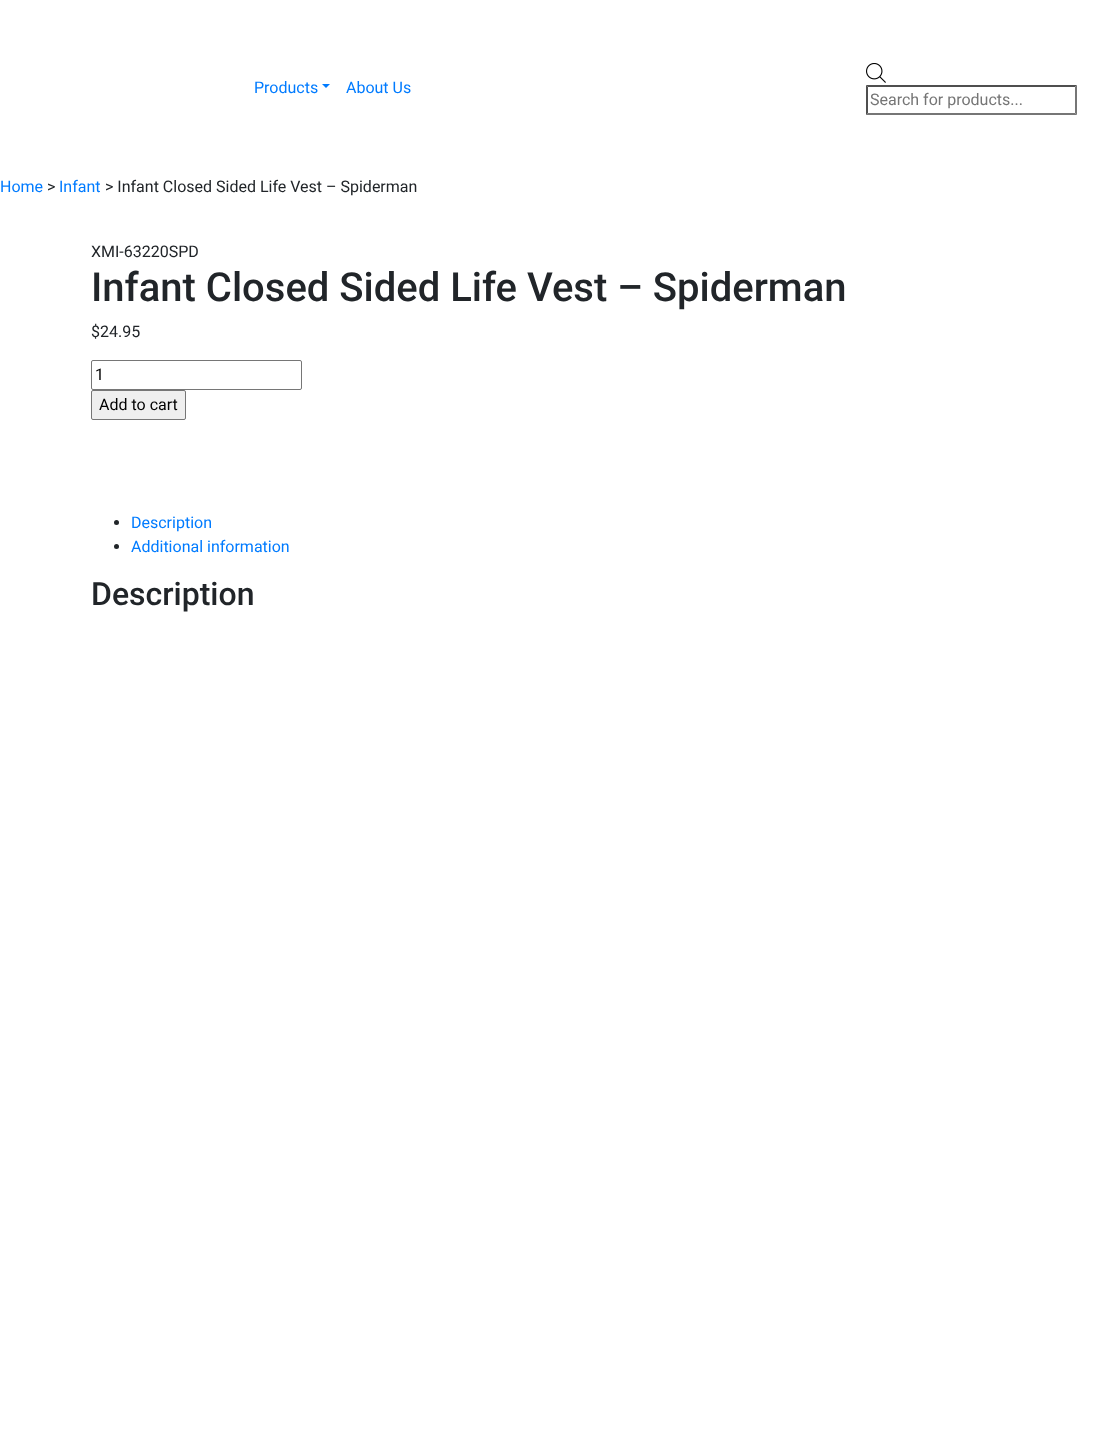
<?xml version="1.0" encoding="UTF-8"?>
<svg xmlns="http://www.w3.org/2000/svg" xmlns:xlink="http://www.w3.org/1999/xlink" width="1112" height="1436">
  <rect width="100%" height="100%" fill="#ffffff" />
  <path d="M 322 84 h 8 l -4 4 z" fill="#007bff" />
  <image x="866" y="63" width="20" height="20" xlink:href="image1.png" />
  <path d="M 866 85 h 211 l -2 2 h -207 z" fill="#4f4f4f" />
  <path d="M 1077 85 v 30 l -2 -2 v -26 z" fill="#767676" />
  <path d="M 1077 115 h -211 l 2 -2 h 207 z" fill="#767676" />
  <path d="M 866 115 v -30 l 2 2 v 26 z" fill="#4f4f4f" />
  <rect x="91.5" y="360.5" width="210" height="29" rx="1.5" fill="none" stroke="#767676" />
  <rect x="91.5" y="390.5" width="94" height="29" rx="1.5" fill="#efefef" stroke="#767676" />
  <circle cx="116.5" cy="522.5" r="2.5" fill="#212529" />
  <circle cx="116.5" cy="546.5" r="2.5" fill="#212529" />
  <text x="254" y="93" style="font-family: Roboto; font-size: 16px; fill: #007bff">Products</text>
  <text x="346" y="93" style="font-family: Roboto; font-size: 16px; fill: #007bff">About Us</text>
  <text x="870" y="105" style="font-family: Roboto; font-size: 16px; fill: #757575">Search for products...</text>
  <text x="0" y="192" style="font-family: Roboto; font-size: 16px; fill: #007bff">Home</text>
  <text x="47" y="192" style="font-family: Roboto; font-size: 16px; fill: #212529">&gt;</text>
  <text x="59" y="192" style="font-family: Roboto; font-size: 16px; fill: #007bff">Infant</text>
  <text x="105" y="192" style="font-family: Roboto; font-size: 16px; fill: #212529">&gt; Infant Closed Sided Life Vest – Spiderman</text>
  <text x="91" y="257" style="font-family: Roboto; font-size: 16px; fill: #212529">XMI-63220SPD</text>
  <text x="91" y="301" style="font-family: Roboto; font-size: 40px; font-weight: 500; fill: #212529">Infant Closed Sided Life Vest – Spiderman</text>
  <text x="91" y="337" style="font-family: Roboto; font-size: 16px; fill: #212529">$24.95</text>
  <text x="95" y="380" style="font-family: Roboto; font-size: 16px; fill: #000000">1</text>
  <text x="99" y="410" style="font-family: Roboto; font-size: 16px; fill: #000000">Add to cart</text>
  <text x="131" y="528" style="font-family: Roboto; font-size: 16px; fill: #007bff">Description</text>
  <text x="131" y="552" style="font-family: Roboto; font-size: 16px; fill: #007bff">Additional information</text>
  <text x="91" y="605" style="font-family: Roboto; font-size: 32px; font-weight: 500; fill: #212529">Description</text>
</svg>
